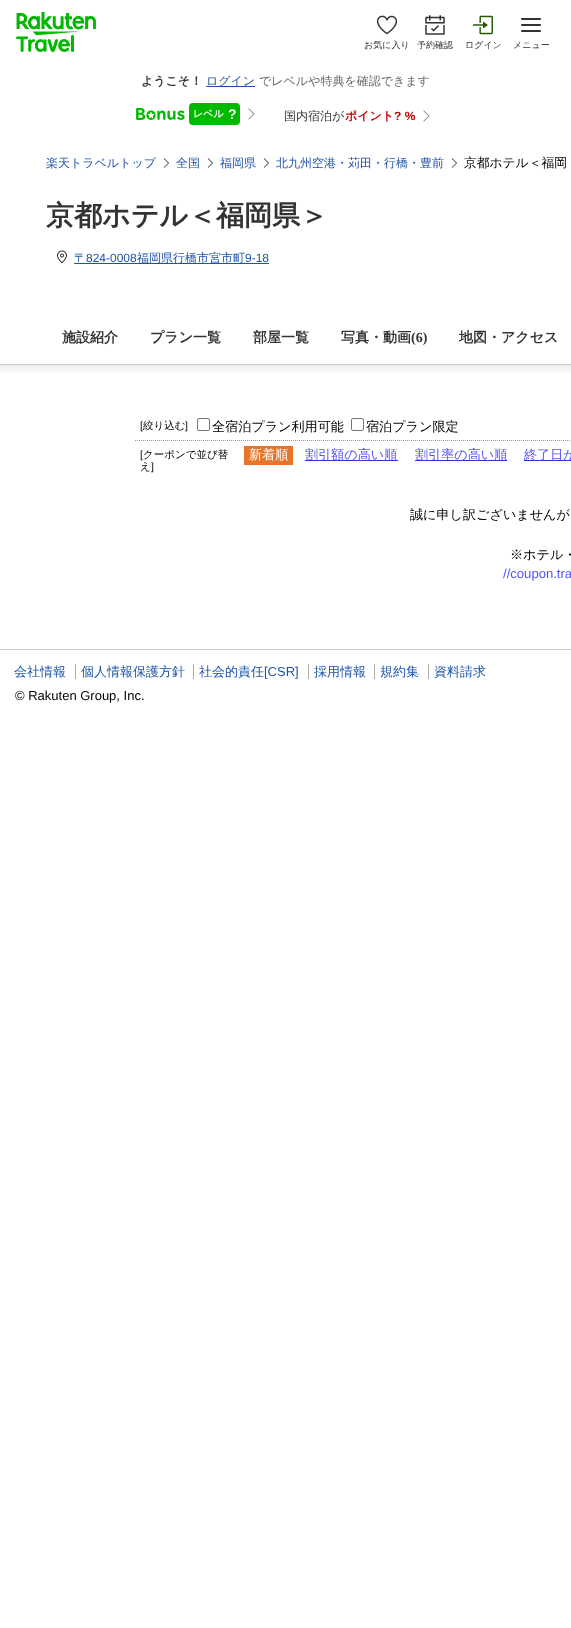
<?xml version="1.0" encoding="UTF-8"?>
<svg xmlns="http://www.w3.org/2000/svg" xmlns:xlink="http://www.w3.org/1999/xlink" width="571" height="1628">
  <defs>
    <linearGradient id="g1" gradientUnits="userSpaceOnUse" x1="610" y1="375" x2="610" y2="365"><stop offset="0" stop-color="#ffffff" /><stop offset="1" stop-color="#ededed" /></linearGradient>
  </defs>
  <rect width="100%" height="100%" fill="#ffffff" />
  <image x="16" y="12" width="80" height="40" xlink:href="image1.png" />
  <image x="376" y="15" width="22" height="20" xlink:href="image2.png" />
  <image x="425" y="15" width="20" height="20" xlink:href="image3.png" />
  <image x="473" y="15" width="20" height="20" xlink:href="image4.png" />
  <image x="521" y="18" width="20" height="14" xlink:href="image5.png" />
  <rect x="206" y="86" width="49" height="1" fill="#1d54a7" />
  <image x="136" y="108" width="49" height="12" xlink:href="image6.png" />
  <rect x="189" y="103" width="51" height="22" rx="4" fill="#00b900" />
  <image x="248" y="108" width="7" height="12" xlink:href="image7.png" />
  <image x="423" y="110" width="7" height="12" xlink:href="image7.png" />
  <image x="163" y="158" width="6" height="10" xlink:href="image8.png" />
  <image x="207" y="158" width="6" height="10" xlink:href="image8.png" />
  <image x="263" y="158" width="6" height="10" xlink:href="image8.png" />
  <image x="451" y="158" width="6" height="10" xlink:href="image8.png" />
  <image x="57" y="250" width="10" height="14" xlink:href="image9.png" />
  <rect x="74" y="263" width="195" height="1" fill="#1d54a7" />
  <rect y="365" width="571" height="9" fill="url(#g1)" />
  <rect y="364" width="571" height="1" fill="#cccccc" />
  <path d="M 135 440.5 h 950" fill="none" stroke="#999999" stroke-dasharray="1 1" />
  <rect x="197.5" y="418.5" width="12" height="12" rx="1.5" fill="none" stroke="#767676" />
  <rect x="351.5" y="418.5" width="12" height="12" rx="1.5" fill="none" stroke="#767676" />
  <rect x="244" y="446" width="49" height="19" fill="#e6752b" />
  <rect x="305" y="460" width="93" height="1" fill="#3333cc" />
  <rect x="415" y="460" width="92" height="1" fill="#3333cc" />
  <rect x="524" y="460" width="47" height="1" fill="#3333cc" />
  <rect y="649" width="571" height="1" fill="#cccccc" />
  <rect x="75" y="664" width="1" height="15" fill="#adadad" />
  <rect x="193" y="664" width="1" height="15" fill="#adadad" />
  <rect x="308" y="664" width="1" height="15" fill="#adadad" />
  <rect x="374" y="664" width="1" height="15" fill="#adadad" />
  <rect x="428" y="664" width="1" height="15" fill="#adadad" />
  <text x="364" y="48" style="font-family: WenQuanYi Zen Hei; font-size: 9px; font-weight: 500; fill: #333333">お気に入り</text>
  <text x="417" y="48" style="font-family: WenQuanYi Zen Hei; font-size: 9px; font-weight: 500; fill: #333333">予約確認</text>
  <text x="465" y="48" style="font-family: WenQuanYi Zen Hei; font-size: 9px; font-weight: 500; fill: #333333">ログイン</text>
  <text x="513" y="48" style="font-family: WenQuanYi Zen Hei; font-size: 9px; font-weight: 500; fill: #333333">メニュー</text>
  <text x="141" y="85" style="font-family: WenQuanYi Zen Hei; font-size: 12px; font-weight: bold; fill: #333333">ようこそ！</text>
  <text x="206" y="85" style="font-family: WenQuanYi Zen Hei; font-size: 12px; font-weight: 500; fill: #1d54a7">ログイン</text>
  <text x="259" y="85" style="font-family: WenQuanYi Zen Hei; font-size: 12px; font-weight: 500; fill: #686868">でレベルや特典を確認できます</text>
  <text x="193" y="117" style="font-family: WenQuanYi Zen Hei; font-size: 10px; font-weight: bold; fill: #ffffff">レベル</text>
  <text x="228" y="119" style="font-family: Liberation Sans; font-size: 14px; font-weight: bold; fill: #ffffff">?</text>
  <text x="284" y="120" style="font-family: WenQuanYi Zen Hei; font-size: 12px; font-weight: 500; fill: #333333">国内宿泊が</text>
  <text x="345" y="120" style="font-family: WenQuanYi Zen Hei; font-size: 12px; font-weight: bold; fill: #bf0000">ポイント</text>
  <text x="394" y="120" style="font-family: Liberation Sans; font-size: 12px; font-weight: bold; fill: #bf0000">? %</text>
  <text x="46" y="167" style="font-family: WenQuanYi Zen Hei; font-size: 12px; font-weight: 500; fill: #1d54a7">楽天トラベルトップ</text>
  <text x="176" y="167" style="font-family: WenQuanYi Zen Hei; font-size: 12px; font-weight: 500; fill: #1d54a7">全国</text>
  <text x="220" y="167" style="font-family: WenQuanYi Zen Hei; font-size: 12px; font-weight: 500; fill: #1d54a7">福岡県</text>
  <text x="276" y="167" style="font-family: WenQuanYi Zen Hei; font-size: 12px; font-weight: 500; fill: #1d54a7">北九州空港・苅田・行橋・豊前</text>
  <text x="464" y="167" style="font-family: WenQuanYi Zen Hei; font-size: 12.75px; font-weight: 500; fill: #000000">京都ホテル＜福岡</text>
  <text x="46" y="225" style="font-family: WenQuanYi Zen Hei; font-size: 28px; font-weight: bold; fill: #333333">京都ホテル＜福岡県＞</text>
  <text x="74" y="262" style="font-family: WenQuanYi Zen Hei; font-size: 12px; font-weight: 500; fill: #1d54a7">〒</text>
  <text x="86" y="262" style="font-family: Liberation Sans; font-size: 12px; fill: #1d54a7">824-0008</text>
  <text x="137" y="262" style="font-family: WenQuanYi Zen Hei; font-size: 12px; font-weight: 500; fill: #1d54a7">福岡県行橋市宮市町</text>
  <text x="245" y="262" style="font-family: Liberation Sans; font-size: 12px; fill: #1d54a7">9-18</text>
  <text x="62" y="342" style="font-family: WenQuanYi Zen Hei; font-size: 14px; font-weight: bold; fill: #333333">施設紹介</text>
  <text x="150" y="342" style="font-family: WenQuanYi Zen Hei; font-size: 14px; font-weight: bold; fill: #333333">プラン一覧</text>
  <text x="253" y="342" style="font-family: WenQuanYi Zen Hei; font-size: 14px; font-weight: bold; fill: #333333">部屋一覧</text>
  <text x="341" y="342" style="font-family: WenQuanYi Zen Hei; font-size: 14px; font-weight: bold; fill: #333333">写真・動画</text>
  <text x="411" y="342" style="font-family: Liberation Serif; font-size: 14px; font-weight: bold; fill: #333333">(6)</text>
  <text x="459" y="342" style="font-family: WenQuanYi Zen Hei; font-size: 14px; font-weight: bold; fill: #333333">地図・アクセス</text>
  <text x="140" y="429" style="font-family: Liberation Sans; font-size: 10.5px; fill: #000000">[</text>
  <text x="143" y="429" style="font-family: WenQuanYi Zen Hei; font-size: 10.5px; font-weight: 500; fill: #000000">絞り込む</text>
  <text x="185" y="429" style="font-family: Liberation Sans; font-size: 10.5px; fill: #000000">]</text>
  <text x="212" y="431" style="font-family: WenQuanYi Zen Hei; font-size: 13.1px; font-weight: 500; fill: #000000">全宿泊プラン利用可能</text>
  <text x="366" y="431" style="font-family: WenQuanYi Zen Hei; font-size: 13.1px; font-weight: 500; fill: #000000">宿泊プラン限定</text>
  <text x="140" y="458" style="font-family: Liberation Sans; font-size: 10.5px; fill: #000000">[</text>
  <text x="143" y="458" style="font-family: WenQuanYi Zen Hei; font-size: 10.5px; font-weight: 500; fill: #000000">クーポンで並び替</text>
  <text x="140" y="470" style="font-family: WenQuanYi Zen Hei; font-size: 10.5px; font-weight: 500; fill: #000000">え</text>
  <text x="151" y="470" style="font-family: Liberation Sans; font-size: 10.5px; fill: #000000">]</text>
  <text x="249" y="459" style="font-family: WenQuanYi Zen Hei; font-size: 13.1px; font-weight: 500; fill: #ffffff">新着順</text>
  <text x="305" y="459" style="font-family: WenQuanYi Zen Hei; font-size: 13.1px; font-weight: 500; fill: #5454f6">割引額の高い順</text>
  <text x="415" y="459" style="font-family: WenQuanYi Zen Hei; font-size: 13.1px; font-weight: 500; fill: #5454f6">割引率の高い順</text>
  <text x="524" y="459" style="font-family: WenQuanYi Zen Hei; font-size: 13.1px; font-weight: 500; fill: #5454f6">終了日が</text>
  <text x="410" y="519" style="font-family: WenQuanYi Zen Hei; font-size: 13.1px; font-weight: 500; fill: #000000">誠に申し訳ございませんが</text>
  <text x="510" y="559" style="font-family: WenQuanYi Zen Hei; font-size: 13.1px; font-weight: 500; fill: #000000">※ホテル・</text>
  <text x="503" y="578" style="font-family: Liberation Sans; font-size: 13.1px; fill: #5454f6">//coupon.tra</text>
  <text x="14" y="676" style="font-family: WenQuanYi Zen Hei; font-size: 13px; font-weight: 500; fill: #1d54a7">会社情報</text>
  <text x="81" y="676" style="font-family: WenQuanYi Zen Hei; font-size: 13px; font-weight: 500; fill: #1d54a7">個人情報保護方針</text>
  <text x="199" y="676" style="font-family: WenQuanYi Zen Hei; font-size: 13px; font-weight: 500; fill: #1d54a7">社会的責任</text>
  <text x="264" y="676" style="font-family: Liberation Sans; font-size: 13px; fill: #1d54a7">[CSR]</text>
  <text x="314" y="676" style="font-family: WenQuanYi Zen Hei; font-size: 13px; font-weight: 500; fill: #1d54a7">採用情報</text>
  <text x="380" y="676" style="font-family: WenQuanYi Zen Hei; font-size: 13px; font-weight: 500; fill: #1d54a7">規約集</text>
  <text x="434" y="676" style="font-family: WenQuanYi Zen Hei; font-size: 13px; font-weight: 500; fill: #1d54a7">資料請求</text>
  <text x="15" y="700" style="font-family: Liberation Sans; font-size: 13px; fill: #000000">© Rakuten Group, Inc.</text>
</svg>
